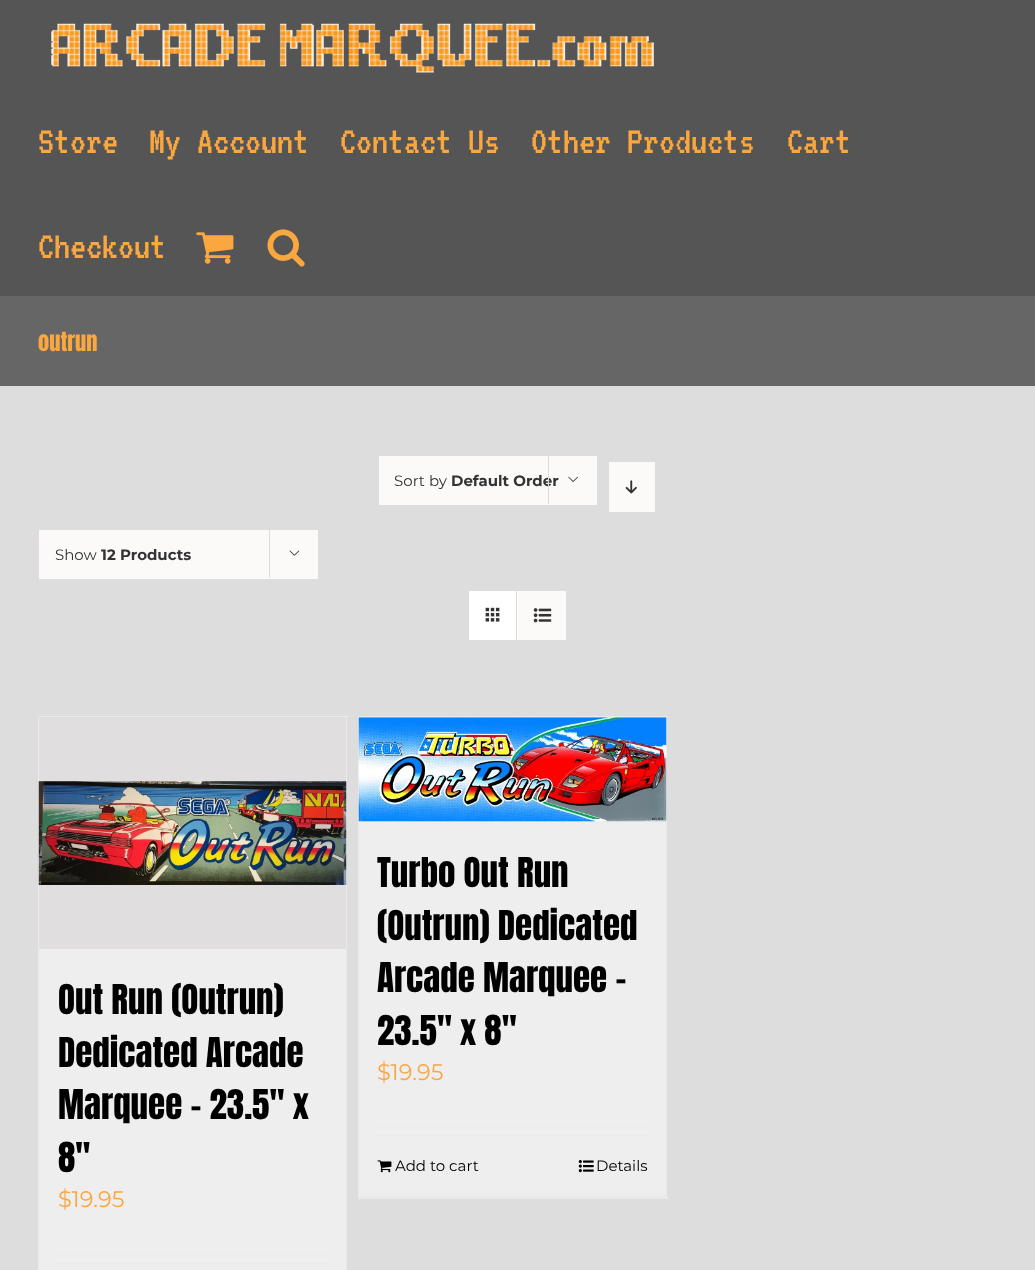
<?xml version="1.0" encoding="UTF-8"?>
<svg xmlns="http://www.w3.org/2000/svg" xmlns:xlink="http://www.w3.org/1999/xlink" width="1035" height="1270">
  <rect width="100%" height="100%" fill="#dddddd" />
  <rect width="1035" height="296" fill="#555555" />
  <image x="51" y="23" width="603" height="50" xlink:href="image1.png" />
  <image x="196" y="232" width="38" height="32" xlink:href="image2.png" />
  <image x="267" y="229" width="38" height="38" xlink:href="image3.png" />
  <rect y="296" width="1035" height="90" fill="#666666" />
  <rect x="379" y="456" width="218" height="49" fill="#fbfaf9" />
  <image x="568" y="476" width="10" height="6" xlink:href="image4.png" />
  <rect x="609" y="462" width="46" height="50" fill="#fbfaf9" />
  <image x="625" y="480" width="12" height="14" xlink:href="image5.png" />
  <rect x="39" y="530" width="279" height="49" fill="#fbfaf9" />
  <rect x="269" y="529" width="1" height="49" fill="#dbdbdb" />
  <image x="289" y="550" width="11" height="6" xlink:href="image6.png" />
  <rect x="469" y="591" width="49" height="49" fill="#ffffff" />
  <rect x="516" y="591" width="1" height="49" fill="#dbdbdb" />
  <image x="485" y="607" width="15" height="15" xlink:href="image7.png" />
  <rect x="518" y="591" width="48" height="49" fill="#fbfaf9" />
  <image x="533" y="608" width="19" height="15" xlink:href="image8.png" />
  <rect x="39" y="949" width="307" height="321" fill="#eeeeee" />
  <rect x="38" y="716" width="310" height="1" fill="#ebeaea" />
  <rect x="346" y="716" width="1" height="554" fill="#ebeaea" />
  <rect x="38" y="716" width="1" height="554" fill="#ebeaea" />
  <rect x="39" y="718" width="307" height="231" fill="#e0dede" />
  <image x="38" y="781" width="309" height="104" xlink:href="image9.png" />
  <rect x="58" y="1254" width="270" height="1" fill="#ebeaea" />
  <rect x="58" y="1263" width="270" height="1" fill="#ebeaea" />
  <rect x="359" y="821" width="307" height="375" fill="#eeeeee" />
  <rect x="358" y="716" width="310" height="1" fill="#ebeaea" />
  <rect x="666" y="716" width="1" height="483" fill="#ebeaea" />
  <rect x="358" y="1196" width="310" height="3" fill="#ebeaea" />
  <rect x="358" y="716" width="1" height="483" fill="#ebeaea" />
  <image x="358" y="717" width="309" height="105" xlink:href="image10.png" />
  <rect x="378" y="1126" width="270" height="1" fill="#ebeaea" />
  <rect x="378" y="1135" width="270" height="1" fill="#ebeaea" />
  <image x="377" y="1160" width="15" height="13" xlink:href="image11.png" />
  <image x="578" y="1160" width="16" height="13" xlink:href="image12.png" />
  <text x="38" y="153" style="font-family: 'VT323'; font-size: 40px; fill: #faa740">Store</text>
  <text x="149" y="153" style="font-family: 'VT323'; font-size: 40px; fill: #faa740">My Account</text>
  <text x="340" y="153" style="font-family: 'VT323'; font-size: 40px; fill: #faa740">Contact Us</text>
  <text x="531" y="153" style="font-family: 'VT323'; font-size: 40px; fill: #faa740">Other Products</text>
  <text x="787" y="153" style="font-family: 'VT323'; font-size: 40px; fill: #faa740">Cart</text>
  <text x="38" y="258" style="font-family: 'VT323'; font-size: 40px; fill: #faa740">Checkout</text>
  <text x="38" y="351" style="font-family: Anton; font-size: 22.5px; fill: #faa740">outrun</text>
  <text x="394" y="486" style="font-family: Montserrat; font-size: 15px; font-weight: 100; fill: #333333">Sort by</text>
  <text x="451" y="486" style="font-family: 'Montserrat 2'; font-size: 15px; font-weight: 100; fill: #333333">Default Order</text>
  <rect x="548" y="455" width="1" height="49" fill="#dbdbdb" />
  <text x="55" y="560" style="font-family: Montserrat; font-size: 15px; font-weight: 100; fill: #333333">Show</text>
  <text x="101" y="560" style="font-family: 'Montserrat 2'; font-size: 15px; font-weight: 100; fill: #333333">12 Products</text>
  <text x="58" y="1014" style="font-family: Anton; font-size: 35px; fill: #000000">Out Run (Outrun)</text>
  <text x="58" y="1067" style="font-family: Anton; font-size: 35px; fill: #000000">Dedicated Arcade</text>
  <text x="58" y="1119" style="font-family: Anton; font-size: 35px; fill: #000000">Marquee – 23.5″ x</text>
  <text x="58" y="1172" style="font-family: Anton; font-size: 35px; fill: #000000">8″</text>
  <text x="58" y="1207" style="font-family: Montserrat; font-size: 22.5px; font-weight: 100; fill: #faa740">$19.95</text>
  <text x="377" y="887" style="font-family: Anton; font-size: 35px; fill: #000000">Turbo Out Run</text>
  <text x="377" y="940" style="font-family: Anton; font-size: 35px; fill: #000000">(Outrun) Dedicated</text>
  <text x="377" y="992" style="font-family: Anton; font-size: 35px; fill: #000000">Arcade Marquee –</text>
  <text x="377" y="1045" style="font-family: Anton; font-size: 35px; fill: #000000">23.5″ x 8″</text>
  <text x="377" y="1080" style="font-family: Montserrat; font-size: 22.5px; font-weight: 100; fill: #faa740">$19.95</text>
  <text x="395" y="1171" style="font-family: Montserrat; font-size: 15px; font-weight: 100; fill: #000000">Add to cart</text>
  <text x="596" y="1171" style="font-family: Montserrat; font-size: 15px; font-weight: 100; fill: #000000">Details</text>
</svg>
